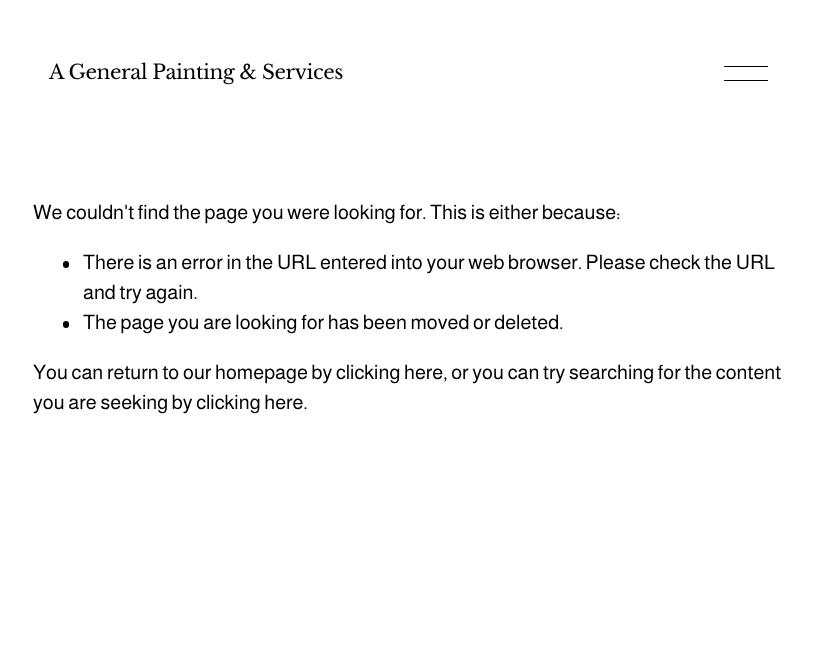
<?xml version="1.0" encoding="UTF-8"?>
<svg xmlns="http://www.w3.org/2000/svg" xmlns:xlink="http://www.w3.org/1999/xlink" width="825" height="649">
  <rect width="100%" height="100%" fill="#ffffff" />
  <rect x="724" y="66" width="44" height="1" fill="#000000" />
  <rect x="724" y="80" width="44" height="1" fill="#000000" />
  <rect x="63" y="261" width="6" height="7" rx="3" fill="#000000" />
  <rect x="63" y="321" width="6" height="7" rx="3" fill="#000000" />
  <text x="49" y="79" style="font-family: Libre Baskerville; font-size: 20px; letter-spacing: -0.4px; fill: #000000">A General Painting &amp; Services</text>
  <text x="33" y="219" style="font-family: Almarai; font-size: 20px; fill: #000000">We couldn't find the page you were looking for. This is either because:</text>
  <text x="83" y="269" style="font-family: Almarai; font-size: 20px; fill: #000000">There is an error in the URL entered into your web browser. Please check the URL</text>
  <text x="83" y="299" style="font-family: Almarai; font-size: 20px; fill: #000000">and try again.</text>
  <text x="83" y="329" style="font-family: Almarai; font-size: 20px; fill: #000000">The page you are looking for has been moved or deleted.</text>
  <text x="33" y="379" style="font-family: Almarai; font-size: 20px; fill: #000000">You can return to our homepage by clicking here, or you can try searching for the content</text>
  <text x="33" y="409" style="font-family: Almarai; font-size: 20px; fill: #000000">you are seeking by clicking here.</text>
</svg>
